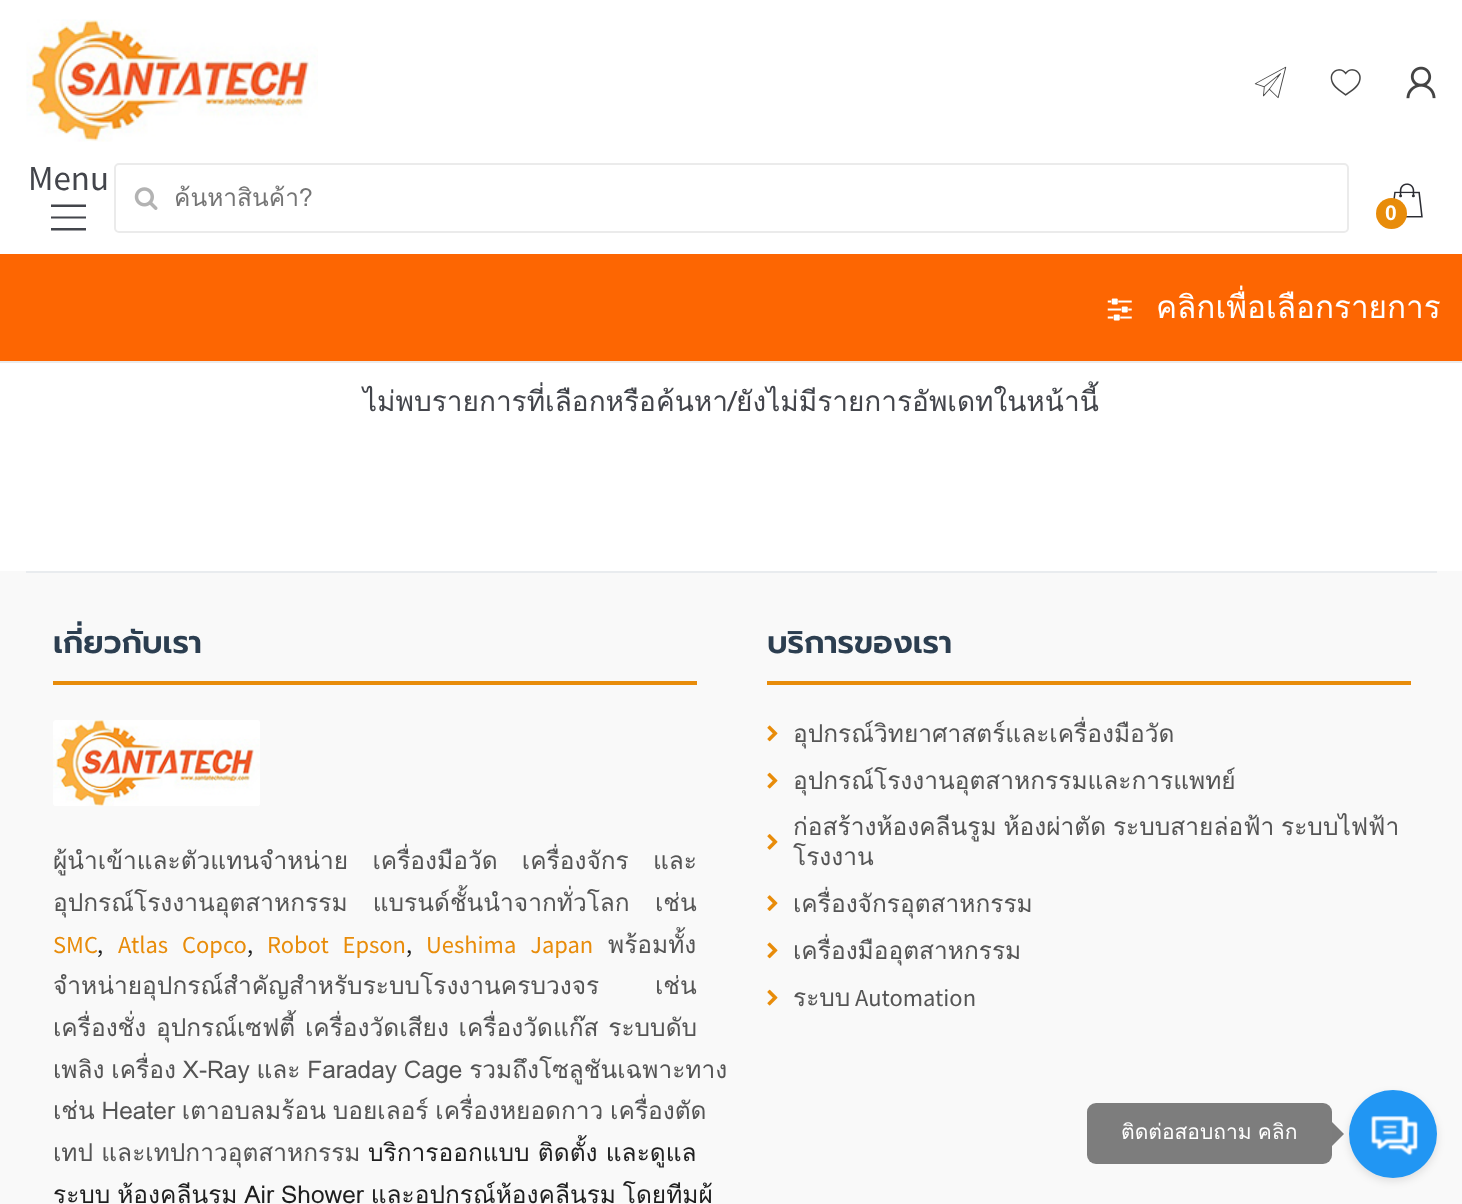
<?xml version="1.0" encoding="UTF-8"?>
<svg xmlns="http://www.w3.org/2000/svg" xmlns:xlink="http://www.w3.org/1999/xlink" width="1462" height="1204">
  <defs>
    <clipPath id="clip1"><rect x="175" y="179" width="1141" height="38" /></clipPath>
  </defs>
  <rect width="100%" height="100%" fill="#ffffff" />
  <image x="26" y="19" width="292" height="123" xlink:href="image1.png" />
  <image x="1254" y="66" width="33" height="33" xlink:href="image2.png" />
  <image x="1330" y="69" width="31" height="27" xlink:href="image3.png" />
  <image x="1406" y="66" width="30" height="33" xlink:href="image4.png" />
  <path d="M 51 204.5 v 2.5 h 35 v -2.5 z m 0 14 h 35 v -2 h -35 z m 0 12 h 35 v -2.5 h -35 z" fill="#43454b" />
  <rect x="115" y="164" width="1233" height="68" rx="4" fill="none" stroke="#ebebeb" stroke-width="2" />
  <image x="134" y="187" width="24" height="23" xlink:href="image5.png" />
  <image x="1393" y="183" width="30" height="35" xlink:href="image6.png" />
  <circle cx="1391.5" cy="213.5" r="15.5" fill="#e88c0a" />
  <rect y="254" width="1462" height="107" fill="#fd6602" />
  <rect y="361" width="1462" height="2" fill="#ebebeb" />
  <image x="1107" y="298" width="25" height="23" xlink:href="image7.png" />
  <rect y="571" width="1462" height="633" fill="#f9f9f9" />
  <rect x="26" y="571" width="1411" height="2" fill="#e9ecef" />
  <rect x="53" y="681" width="644" height="4" fill="#e88c0a" />
  <image x="53" y="720" width="207" height="86" xlink:href="image8.png" />
  <rect x="767" y="681" width="644" height="4" fill="#e88c0a" />
  <image x="767" y="725" width="11" height="17" xlink:href="image9.png" />
  <image x="767" y="772" width="11" height="17" xlink:href="image10.png" />
  <image x="767" y="834" width="11" height="16" xlink:href="image11.png" />
  <image x="767" y="895" width="11" height="16" xlink:href="image12.png" />
  <image x="767" y="942" width="11" height="17" xlink:href="image13.png" />
  <image x="767" y="989" width="11" height="17" xlink:href="image14.png" />
  <rect x="1087" y="1103" width="245" height="61" rx="9" fill="#7d7d7d" />
  <rect x="1349" y="1094" width="88" height="87" rx="43.5" fill="#000000" fill-opacity="0.11" filter="blur(4.5px)" />
  <path d="M 1332 1146 v -24 l 12 12 z" fill="#000000" fill-opacity="0.5" />
  <circle cx="1393" cy="1134" r="44" fill="#2196f3" />
  <image x="1371" y="1116" width="47" height="40" xlink:href="image15.png" />
  <text x="28" y="190" style="font-family: Source Sans Pro; font-size: 35px; fill: #43454b">Menu</text>
  <g clip-path="url(#clip1)">
    <text x="174" y="206" style="font-family: Loma; font-size: 24.5px; fill: #757575">ค้นหาสินค้า?</text>
  </g>
  <text x="1385" y="220" style="font-family: Liberation Sans; font-size: 21px; font-weight: bold; fill: #ffffff">0</text>
  <text x="1156" y="318" style="font-family: Loma; font-size: 31.5px; fill: #ffffff">คลิกเพื่อเลือกรายการ</text>
  <text x="363" y="411" style="font-family: Loma; font-size: 28px; fill: #43454b">ไม่พบรายการที่เลือกหรือค้นหา/ยังไม่มีรายการอัพเดทในหน้านี้</text>
  <text x="53" y="653" style="font-family: Prompt; font-size: 31.5px; font-weight: 600; fill: #2c3e50">เกี่ยวกับเรา</text>
  <text x="53" y="869" word-spacing="16" style="font-family: Loma; font-size: 24.5px; fill: #555555">ผู้นำเข้าและตัวแทนจำหน่าย เครื่องมือวัด เครื่องจักร และ</text>
  <text x="53" y="911" word-spacing="17" style="font-family: Loma; font-size: 24.5px; fill: #555555">อุปกรณ์โรงงานอุตสาหกรรม แบรนด์ชั้นนำจากทั่วโลก เช่น</text>
  <text x="53" y="953" style="font-family: Source Sans Pro; font-size: 24.5px; fill: #e88c0a">SMC</text>
  <text x="97" y="953" style="font-family: Source Sans Pro; font-size: 24.5px; fill: #1f1f1f">,</text>
  <text x="118" y="953" word-spacing="9" style="font-family: Source Sans Pro; font-size: 24.5px; fill: #e88c0a">Atlas Copco</text>
  <text x="247" y="953" style="font-family: Source Sans Pro; font-size: 24.5px; fill: #1f1f1f">,</text>
  <text x="267" y="953" word-spacing="9" style="font-family: Source Sans Pro; font-size: 24.5px; fill: #e88c0a">Robot Epson</text>
  <text x="406" y="953" style="font-family: Source Sans Pro; font-size: 24.5px; fill: #1f1f1f">,</text>
  <text x="426" y="953" word-spacing="9" style="font-family: Source Sans Pro; font-size: 24.5px; fill: #e88c0a">Ueshima Japan</text>
  <text x="608" y="953" style="font-family: Loma; font-size: 24.5px; fill: #555555">พร้อมทั้ง</text>
  <text x="53" y="994" style="font-family: Loma; font-size: 24.5px; fill: #555555">จำหน่ายอุปกรณ์สำคัญสำหรับระบบโรงงานครบวงจร</text>
  <text x="655" y="994" style="font-family: Loma; font-size: 24.5px; fill: #555555">เช่น</text>
  <text x="53" y="1036" word-spacing="1.5" style="font-family: Loma; font-size: 24.5px; fill: #555555">เครื่องชั่ง อุปกรณ์เซฟตี้ เครื่องวัดเสียง เครื่องวัดแก๊ส ระบบดับ</text>
  <text x="53" y="1078" word-spacing="-1.5" style="font-family: Loma; font-size: 24.5px; fill: #555555">เพลิง เครื่อง X-Ray และ Faraday Cage รวมถึงโซลูชันเฉพาะทาง</text>
  <text x="53" y="1119" word-spacing="-1.5" style="font-family: Loma; font-size: 24.5px; fill: #555555">เช่น Heater เตาอบลมร้อน บอยเลอร์ เครื่องหยอดกาว เครื่องตัด</text>
  <text x="53" y="1161" style="font-family: Loma; font-size: 24.5px; fill: #555555">เทป และเทปกาวอุตสาหกรรม</text>
  <text x="368" y="1161" style="font-family: Loma; font-size: 24.5px; fill: #1f1f1f">บริการออกแบบ ติดตั้ง และดูแล</text>
  <text x="53" y="1203" word-spacing="-1.5" style="font-family: Loma; font-size: 24.5px; fill: #1f1f1f">ระบบ ห้องคลีนรูม Air Shower และอุปกรณ์ห้องคลีนรูม โดยทีมผู้</text>
  <text x="767" y="653" style="font-family: Prompt; font-size: 31.5px; font-weight: 600; fill: #2c3e50">บริการของเรา</text>
  <text x="793" y="742" style="font-family: Loma; font-size: 24.5px; fill: #555555">อุปกรณ์วิทยาศาสตร์และเครื่องมือวัด</text>
  <text x="793" y="789" style="font-family: Loma; font-size: 24.5px; fill: #555555">อุปกรณ์โรงงานอุตสาหกรรมและการแพทย์</text>
  <text x="793" y="835" word-spacing="-1.5" style="font-family: Loma; font-size: 24.5px; fill: #555555">ก่อสร้างห้องคลีนรูม ห้องผ่าตัด ระบบสายล่อฟ้า ระบบไฟฟ้า</text>
  <text x="793" y="865" style="font-family: Loma; font-size: 24.5px; fill: #555555">โรงงาน</text>
  <text x="793" y="912" style="font-family: Loma; font-size: 24.5px; fill: #555555">เครื่องจักรอุตสาหกรรม</text>
  <text x="793" y="959" style="font-family: Loma; font-size: 24.5px; fill: #555555">เครื่องมืออุตสาหกรรม</text>
  <text x="793" y="1006" style="font-family: Loma; font-size: 24.5px; fill: #555555">ระบบ</text>
  <text x="855" y="1006" style="font-family: Source Sans Pro; font-size: 24.5px; fill: #555555">Automation</text>
  <text x="1121" y="1139" word-spacing="-1" style="font-family: Loma; font-size: 21px; fill: #ffffff">ติดต่อสอบถาม คลิก</text>
</svg>
